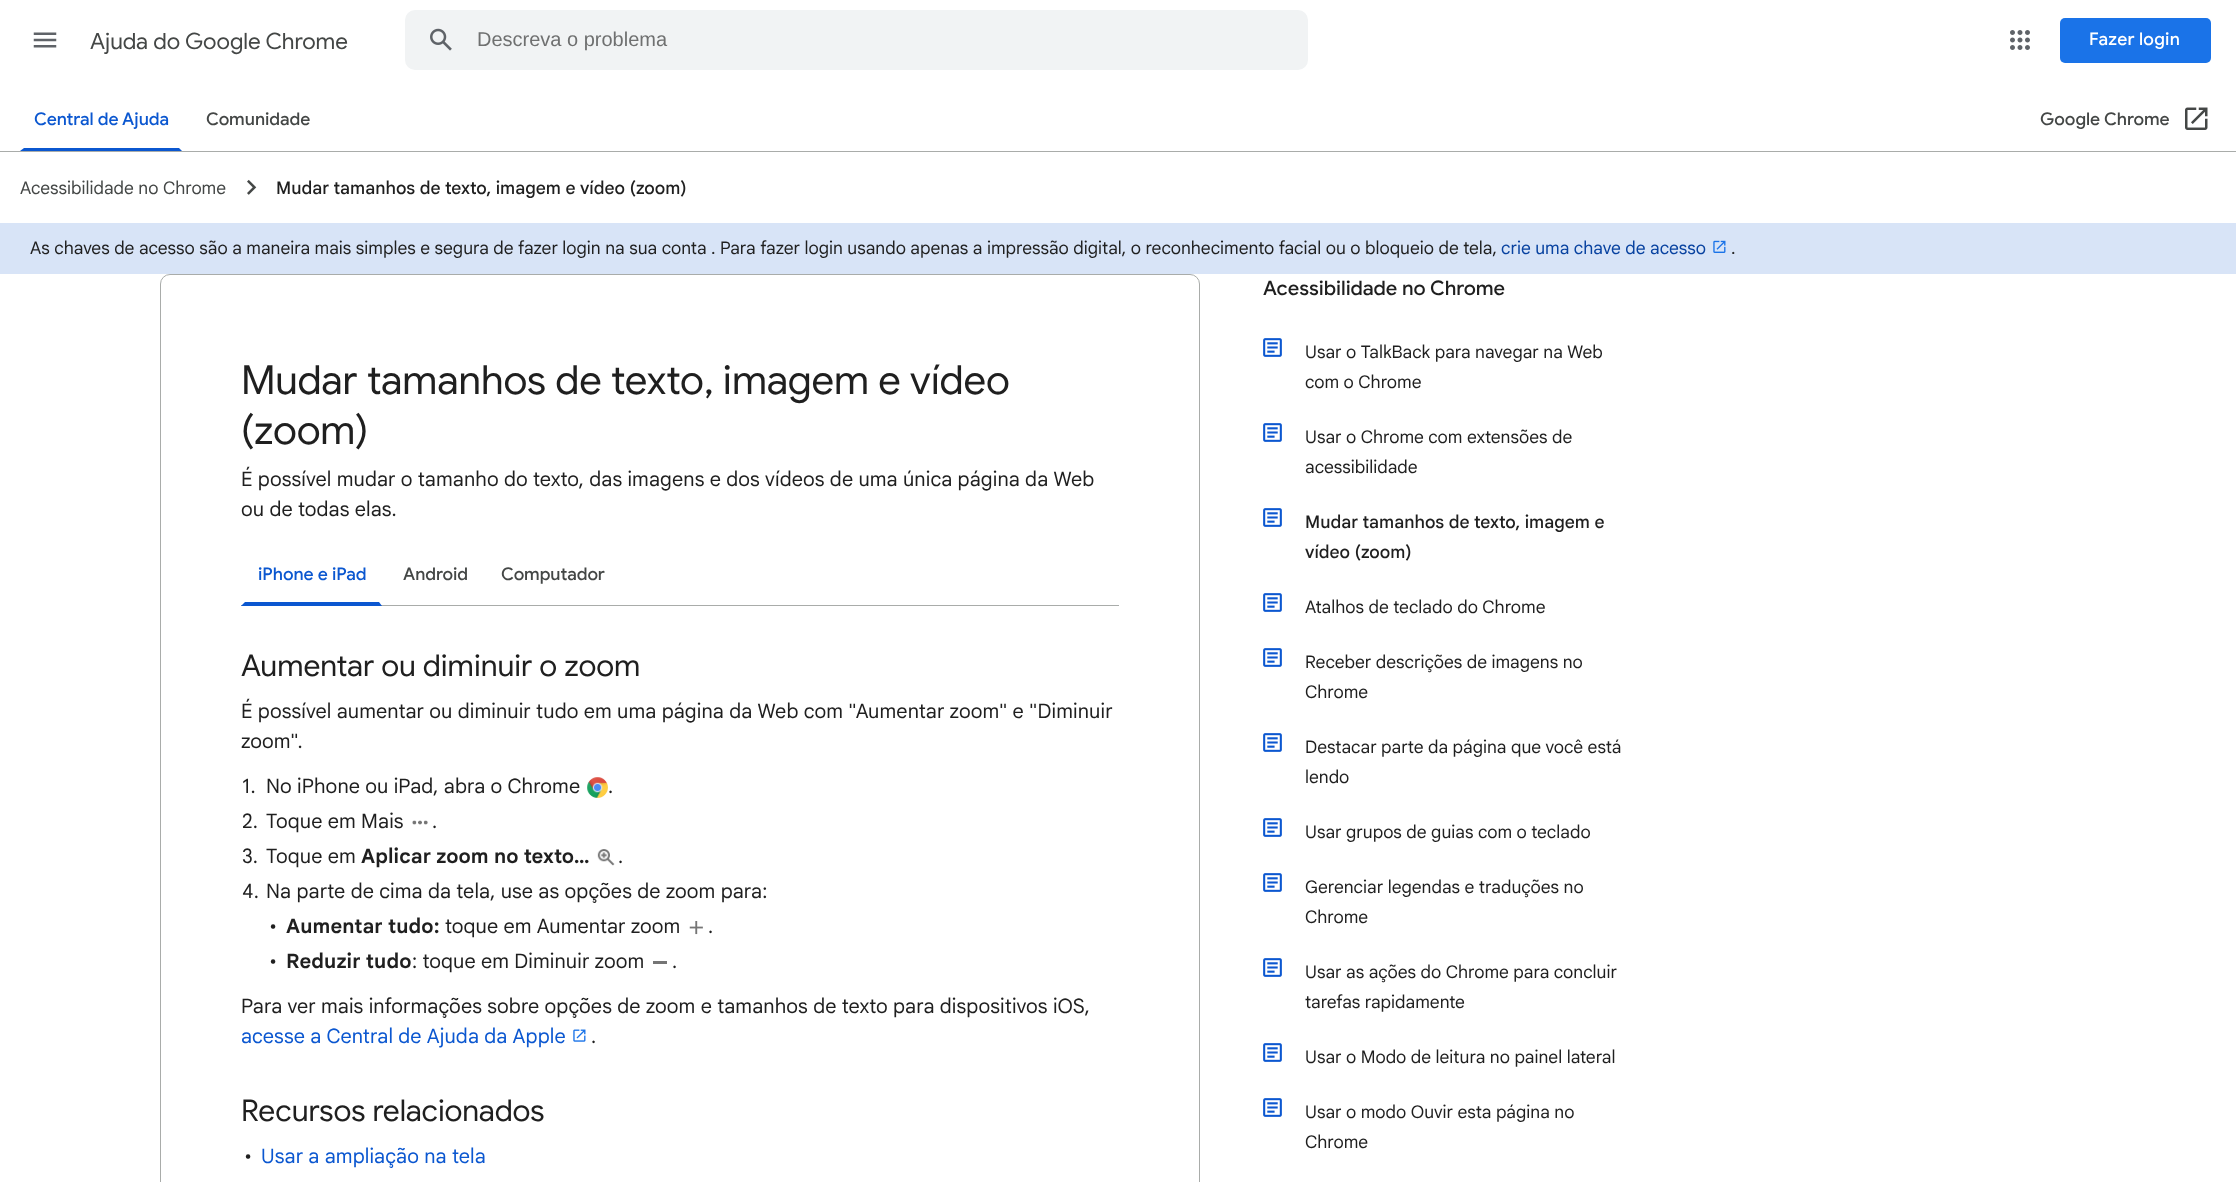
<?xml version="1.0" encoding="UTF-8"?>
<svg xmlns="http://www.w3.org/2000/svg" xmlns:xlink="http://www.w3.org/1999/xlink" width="2236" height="1182">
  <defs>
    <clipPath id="clip1"><rect x="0" y="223" width="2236" height="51" /></clipPath>
    <clipPath id="clip2"><path d="M 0 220 h 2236 v 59 h -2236 z m 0 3 h 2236 v 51 h -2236 z" clip-rule="evenodd" /></clipPath>
  </defs>
  <rect width="100%" height="100%" fill="#ffffff" />
  <rect y="223" width="2236" height="51" fill="#d8e4f7" />
  <image x="33" y="32" width="24" height="16" xlink:href="image1.png" />
  <rect x="405" y="10" width="903" height="60" rx="10" fill="#f1f3f4" />
  <image x="430" y="28" width="22" height="23" xlink:href="image2.png" />
  <image x="2010" y="30" width="20" height="20" xlink:href="image3.png" />
  <rect x="2060" y="18" width="151" height="45" rx="5" fill="#1a73e8" />
  <rect y="151" width="2236" height="1" fill="#a9acaa" />
  <path d="M 182 151 h -162 l 4 -3 h 155 z" fill="#0b57d0" />
  <image x="2185" y="107" width="23" height="23" xlink:href="image4.png" />
  <image x="247" y="179" width="10" height="16" xlink:href="image5.png" />
  <g clip-path="url(#clip1)">
    <g clip-path="url(#clip2)">
      <rect y="224" width="2236" height="51" fill="#2a364a" fill-opacity="0.3" filter="blur(1px)" />
    </g>
  </g>
  <image x="1713" y="240" width="13" height="13" xlink:href="image6.png" />
  <rect x="160.5" y="274.5" width="1039" height="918" rx="9.5" fill="none" stroke="#a9acaa" />
  <rect x="241" y="605" width="878" height="1" fill="#a9acaa" />
  <path d="M 382 606 h -141 l 4 -4 h 134 z" fill="#0b57d0" />
  <image x="587" y="777" width="21" height="21" xlink:href="image7.png" />
  <image x="412" y="820" width="16" height="5" xlink:href="image8.png" />
  <image x="597" y="849" width="18" height="17" xlink:href="image9.png" />
  <image x="689" y="921" width="14" height="14" xlink:href="image10.png" />
  <rect x="653" y="961" width="14" height="3" fill="#757575" />
  <image x="573" y="1029" width="13" height="13" xlink:href="image11.png" />
  <image x="1263" y="338" width="19" height="19" xlink:href="image12.png" />
  <image x="1263" y="423" width="19" height="19" xlink:href="image12.png" />
  <image x="1263" y="508" width="19" height="19" xlink:href="image12.png" />
  <image x="1263" y="593" width="19" height="19" xlink:href="image12.png" />
  <image x="1263" y="648" width="19" height="19" xlink:href="image12.png" />
  <image x="1263" y="733" width="19" height="19" xlink:href="image12.png" />
  <image x="1263" y="818" width="19" height="19" xlink:href="image12.png" />
  <image x="1263" y="873" width="19" height="19" xlink:href="image12.png" />
  <image x="1263" y="958" width="19" height="19" xlink:href="image12.png" />
  <image x="1263" y="1043" width="19" height="19" xlink:href="image12.png" />
  <image x="1263" y="1098" width="19" height="19" xlink:href="image12.png" />
  <text x="90" y="49" style="font-family: Google Sans; font-size: 22.5px; fill: #444746">Ajuda do Google Chrome</text>
  <text x="477" y="46" style="font-family: Liberation Sans; font-size: 20px; fill: #6f7070">Descreva o problema</text>
  <text x="2089" y="45" style="font-family: Google Sans; font-size: 17.5px; font-weight: 500; letter-spacing: 0.25px; fill: #ffffff">Fazer login</text>
  <text x="34" y="125" style="font-family: Google Sans; font-size: 17.5px; font-weight: 500; fill: #0b57d0">Central de Ajuda</text>
  <text x="206" y="125" style="font-family: Google Sans; font-size: 17.5px; font-weight: 500; fill: #444746">Comunidade</text>
  <text x="2040" y="125" style="font-family: Google Sans; font-size: 17.5px; font-weight: 500; fill: #444746">Google Chrome</text>
  <text x="20" y="194" style="font-family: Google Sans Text; font-size: 17.5px; fill: #444746">Acessibilidade no Chrome</text>
  <text x="276" y="194" style="font-family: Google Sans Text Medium; font-size: 17.5px; font-weight: 500; fill: #1f1f1f">Mudar tamanhos de texto, imagem e vídeo (zoom)</text>
  <text x="30" y="254" style="font-family: Google Sans Text; font-size: 17.5px; fill: #1f1f1f">As chaves de acesso são a maneira mais simples e segura de fazer login na sua conta . Para fazer login usando apenas a impressão digital, o reconhecimento facial ou o bloqueio de tela,</text>
  <text x="1501" y="254" style="font-family: Google Sans Text; font-size: 17.5px; fill: #0842a0">crie uma chave de acesso</text>
  <text x="1731" y="254" style="font-family: Google Sans Text; font-size: 17.5px; fill: #1f1f1f">.</text>
  <text x="241" y="394" style="font-family: Google Sans; font-size: 40px; fill: #1f1f1f">Mudar tamanhos de texto, imagem e vídeo</text>
  <text x="241" y="444" style="font-family: Google Sans; font-size: 40px; fill: #1f1f1f">(zoom)</text>
  <text x="241" y="486" style="font-family: Google Sans Text; font-size: 20px; letter-spacing: 0.1px; fill: #1f1f1f">É possível mudar o tamanho do texto, das imagens e dos vídeos de uma única página da Web</text>
  <text x="241" y="516" style="font-family: Google Sans Text; font-size: 20px; letter-spacing: 0.1px; fill: #1f1f1f">ou de todas elas.</text>
  <text x="258" y="580" style="font-family: Google Sans; font-size: 17.5px; font-weight: 500; fill: #0b57d0">iPhone e iPad</text>
  <text x="403" y="580" style="font-family: Google Sans; font-size: 17.5px; font-weight: 500; fill: #444746">Android</text>
  <text x="501" y="580" style="font-family: Google Sans; font-size: 17.5px; font-weight: 500; fill: #444746">Computador</text>
  <text x="241" y="676" style="font-family: Google Sans; font-size: 30px; fill: #1f1f1f">Aumentar ou diminuir o zoom</text>
  <text x="241" y="718" style="font-family: Google Sans Text; font-size: 20px; letter-spacing: 0.1px; fill: #1f1f1f">É possível aumentar ou diminuir tudo em uma página da Web com "Aumentar zoom" e "Diminuir</text>
  <text x="241" y="748" style="font-family: Google Sans Text; font-size: 20px; letter-spacing: 0.1px; fill: #1f1f1f">zoom".</text>
  <text x="242" y="793" style="font-family: Google Sans Text; font-size: 20px; letter-spacing: 0.1px; fill: #1f1f1f">1.</text>
  <text x="266" y="793" style="font-family: Google Sans Text; font-size: 20px; letter-spacing: 0.1px; fill: #1f1f1f">No iPhone ou iPad, abra o Chrome</text>
  <text x="608" y="793" style="font-family: Google Sans Text; font-size: 20px; letter-spacing: 0.1px; fill: #1f1f1f">.</text>
  <text x="242" y="828" style="font-family: Google Sans Text; font-size: 20px; letter-spacing: 0.1px; fill: #1f1f1f">2.</text>
  <text x="266" y="828" style="font-family: Google Sans Text; font-size: 20px; letter-spacing: 0.1px; fill: #1f1f1f">Toque em Mais</text>
  <text x="432" y="828" style="font-family: Google Sans Text; font-size: 20px; letter-spacing: 0.1px; fill: #1f1f1f">.</text>
  <text x="242" y="863" style="font-family: Google Sans Text; font-size: 20px; letter-spacing: 0.1px; fill: #1f1f1f">3.</text>
  <text x="266" y="863" style="font-family: Google Sans Text; font-size: 20px; letter-spacing: 0.1px; fill: #1f1f1f">Toque em</text>
  <text x="361" y="863" style="font-family: Google Sans Text; font-size: 20px; font-weight: bold; letter-spacing: 0.1px; fill: #1f1f1f">Aplicar zoom no texto…</text>
  <text x="618" y="863" style="font-family: Google Sans Text; font-size: 20px; letter-spacing: 0.1px; fill: #1f1f1f">.</text>
  <text x="242" y="898" style="font-family: Google Sans Text; font-size: 20px; letter-spacing: 0.1px; fill: #1f1f1f">4.</text>
  <text x="266" y="898" style="font-family: Google Sans Text; font-size: 20px; letter-spacing: 0.1px; fill: #1f1f1f">Na parte de cima da tela, use as opções de zoom para:</text>
  <text x="269" y="933" style="font-family: Google Sans Text; font-size: 20px; letter-spacing: 0.1px; fill: #1f1f1f">•</text>
  <text x="286" y="933" style="font-family: Google Sans Text; font-size: 20px; font-weight: bold; letter-spacing: 0.1px; fill: #1f1f1f">Aumentar tudo:</text>
  <text x="445" y="933" style="font-family: Google Sans Text; font-size: 20px; letter-spacing: 0.1px; fill: #1f1f1f">toque em Aumentar zoom</text>
  <text x="708" y="933" style="font-family: Google Sans Text; font-size: 20px; letter-spacing: 0.1px; fill: #1f1f1f">.</text>
  <text x="269" y="968" style="font-family: Google Sans Text; font-size: 20px; letter-spacing: 0.1px; fill: #1f1f1f">•</text>
  <text x="286" y="968" style="font-family: Google Sans Text; font-size: 20px; font-weight: bold; letter-spacing: 0.1px; fill: #1f1f1f">Reduzir tudo</text>
  <text x="412" y="968" style="font-family: Google Sans Text; font-size: 20px; letter-spacing: 0.1px; fill: #1f1f1f">: toque em Diminuir zoom</text>
  <text x="672" y="968" style="font-family: Google Sans Text; font-size: 20px; letter-spacing: 0.1px; fill: #1f1f1f">.</text>
  <text x="241" y="1013" style="font-family: Google Sans Text; font-size: 20px; letter-spacing: 0.1px; fill: #1f1f1f">Para ver mais informações sobre opções de zoom e tamanhos de texto para dispositivos iOS,</text>
  <text x="241" y="1043" style="font-family: Google Sans Text; font-size: 20px; letter-spacing: 0.1px; fill: #0b57d0">acesse a Central de Ajuda da Apple</text>
  <text x="591" y="1043" style="font-family: Google Sans Text; font-size: 20px; letter-spacing: 0.1px; fill: #1f1f1f">.</text>
  <text x="241" y="1121" style="font-family: Google Sans; font-size: 30px; fill: #1f1f1f">Recursos relacionados</text>
  <text x="244" y="1163" style="font-family: Google Sans Text; font-size: 20px; letter-spacing: 0.1px; fill: #1f1f1f">•</text>
  <text x="261" y="1163" style="font-family: Google Sans Text; font-size: 20px; letter-spacing: 0.1px; fill: #0b57d0">Usar a ampliação na tela</text>
  <text x="1263" y="295" style="font-family: Google Sans; font-size: 20px; font-weight: 500; fill: #1f1f1f">Acessibilidade no Chrome</text>
  <text x="1305" y="358" style="font-family: Google Sans Text; font-size: 17.5px; fill: #1f1f1f">Usar o TalkBack para navegar na Web</text>
  <text x="1305" y="388" style="font-family: Google Sans Text; font-size: 17.5px; fill: #1f1f1f">com o Chrome</text>
  <text x="1305" y="443" style="font-family: Google Sans Text; font-size: 17.5px; fill: #1f1f1f">Usar o Chrome com extensões de</text>
  <text x="1305" y="473" style="font-family: Google Sans Text; font-size: 17.5px; fill: #1f1f1f">acessibilidade</text>
  <text x="1305" y="528" style="font-family: Google Sans Text Medium; font-size: 17.5px; font-weight: 500; fill: #1f1f1f">Mudar tamanhos de texto, imagem e</text>
  <text x="1305" y="558" style="font-family: Google Sans Text Medium; font-size: 17.5px; font-weight: 500; fill: #1f1f1f">vídeo (zoom)</text>
  <text x="1305" y="613" style="font-family: Google Sans Text; font-size: 17.5px; fill: #1f1f1f">Atalhos de teclado do Chrome</text>
  <text x="1305" y="668" style="font-family: Google Sans Text; font-size: 17.5px; fill: #1f1f1f">Receber descrições de imagens no</text>
  <text x="1305" y="698" style="font-family: Google Sans Text; font-size: 17.5px; fill: #1f1f1f">Chrome</text>
  <text x="1305" y="753" style="font-family: Google Sans Text; font-size: 17.5px; fill: #1f1f1f">Destacar parte da página que você está</text>
  <text x="1305" y="783" style="font-family: Google Sans Text; font-size: 17.5px; fill: #1f1f1f">lendo</text>
  <text x="1305" y="838" style="font-family: Google Sans Text; font-size: 17.5px; fill: #1f1f1f">Usar grupos de guias com o teclado</text>
  <text x="1305" y="893" style="font-family: Google Sans Text; font-size: 17.5px; fill: #1f1f1f">Gerenciar legendas e traduções no</text>
  <text x="1305" y="923" style="font-family: Google Sans Text; font-size: 17.5px; fill: #1f1f1f">Chrome</text>
  <text x="1305" y="978" style="font-family: Google Sans Text; font-size: 17.5px; fill: #1f1f1f">Usar as ações do Chrome para concluir</text>
  <text x="1305" y="1008" style="font-family: Google Sans Text; font-size: 17.5px; fill: #1f1f1f">tarefas rapidamente</text>
  <text x="1305" y="1063" style="font-family: Google Sans Text; font-size: 17.5px; fill: #1f1f1f">Usar o Modo de leitura no painel lateral</text>
  <text x="1305" y="1118" style="font-family: Google Sans Text; font-size: 17.5px; fill: #1f1f1f">Usar o modo Ouvir esta página no</text>
  <text x="1305" y="1148" style="font-family: Google Sans Text; font-size: 17.5px; fill: #1f1f1f">Chrome</text>
</svg>
